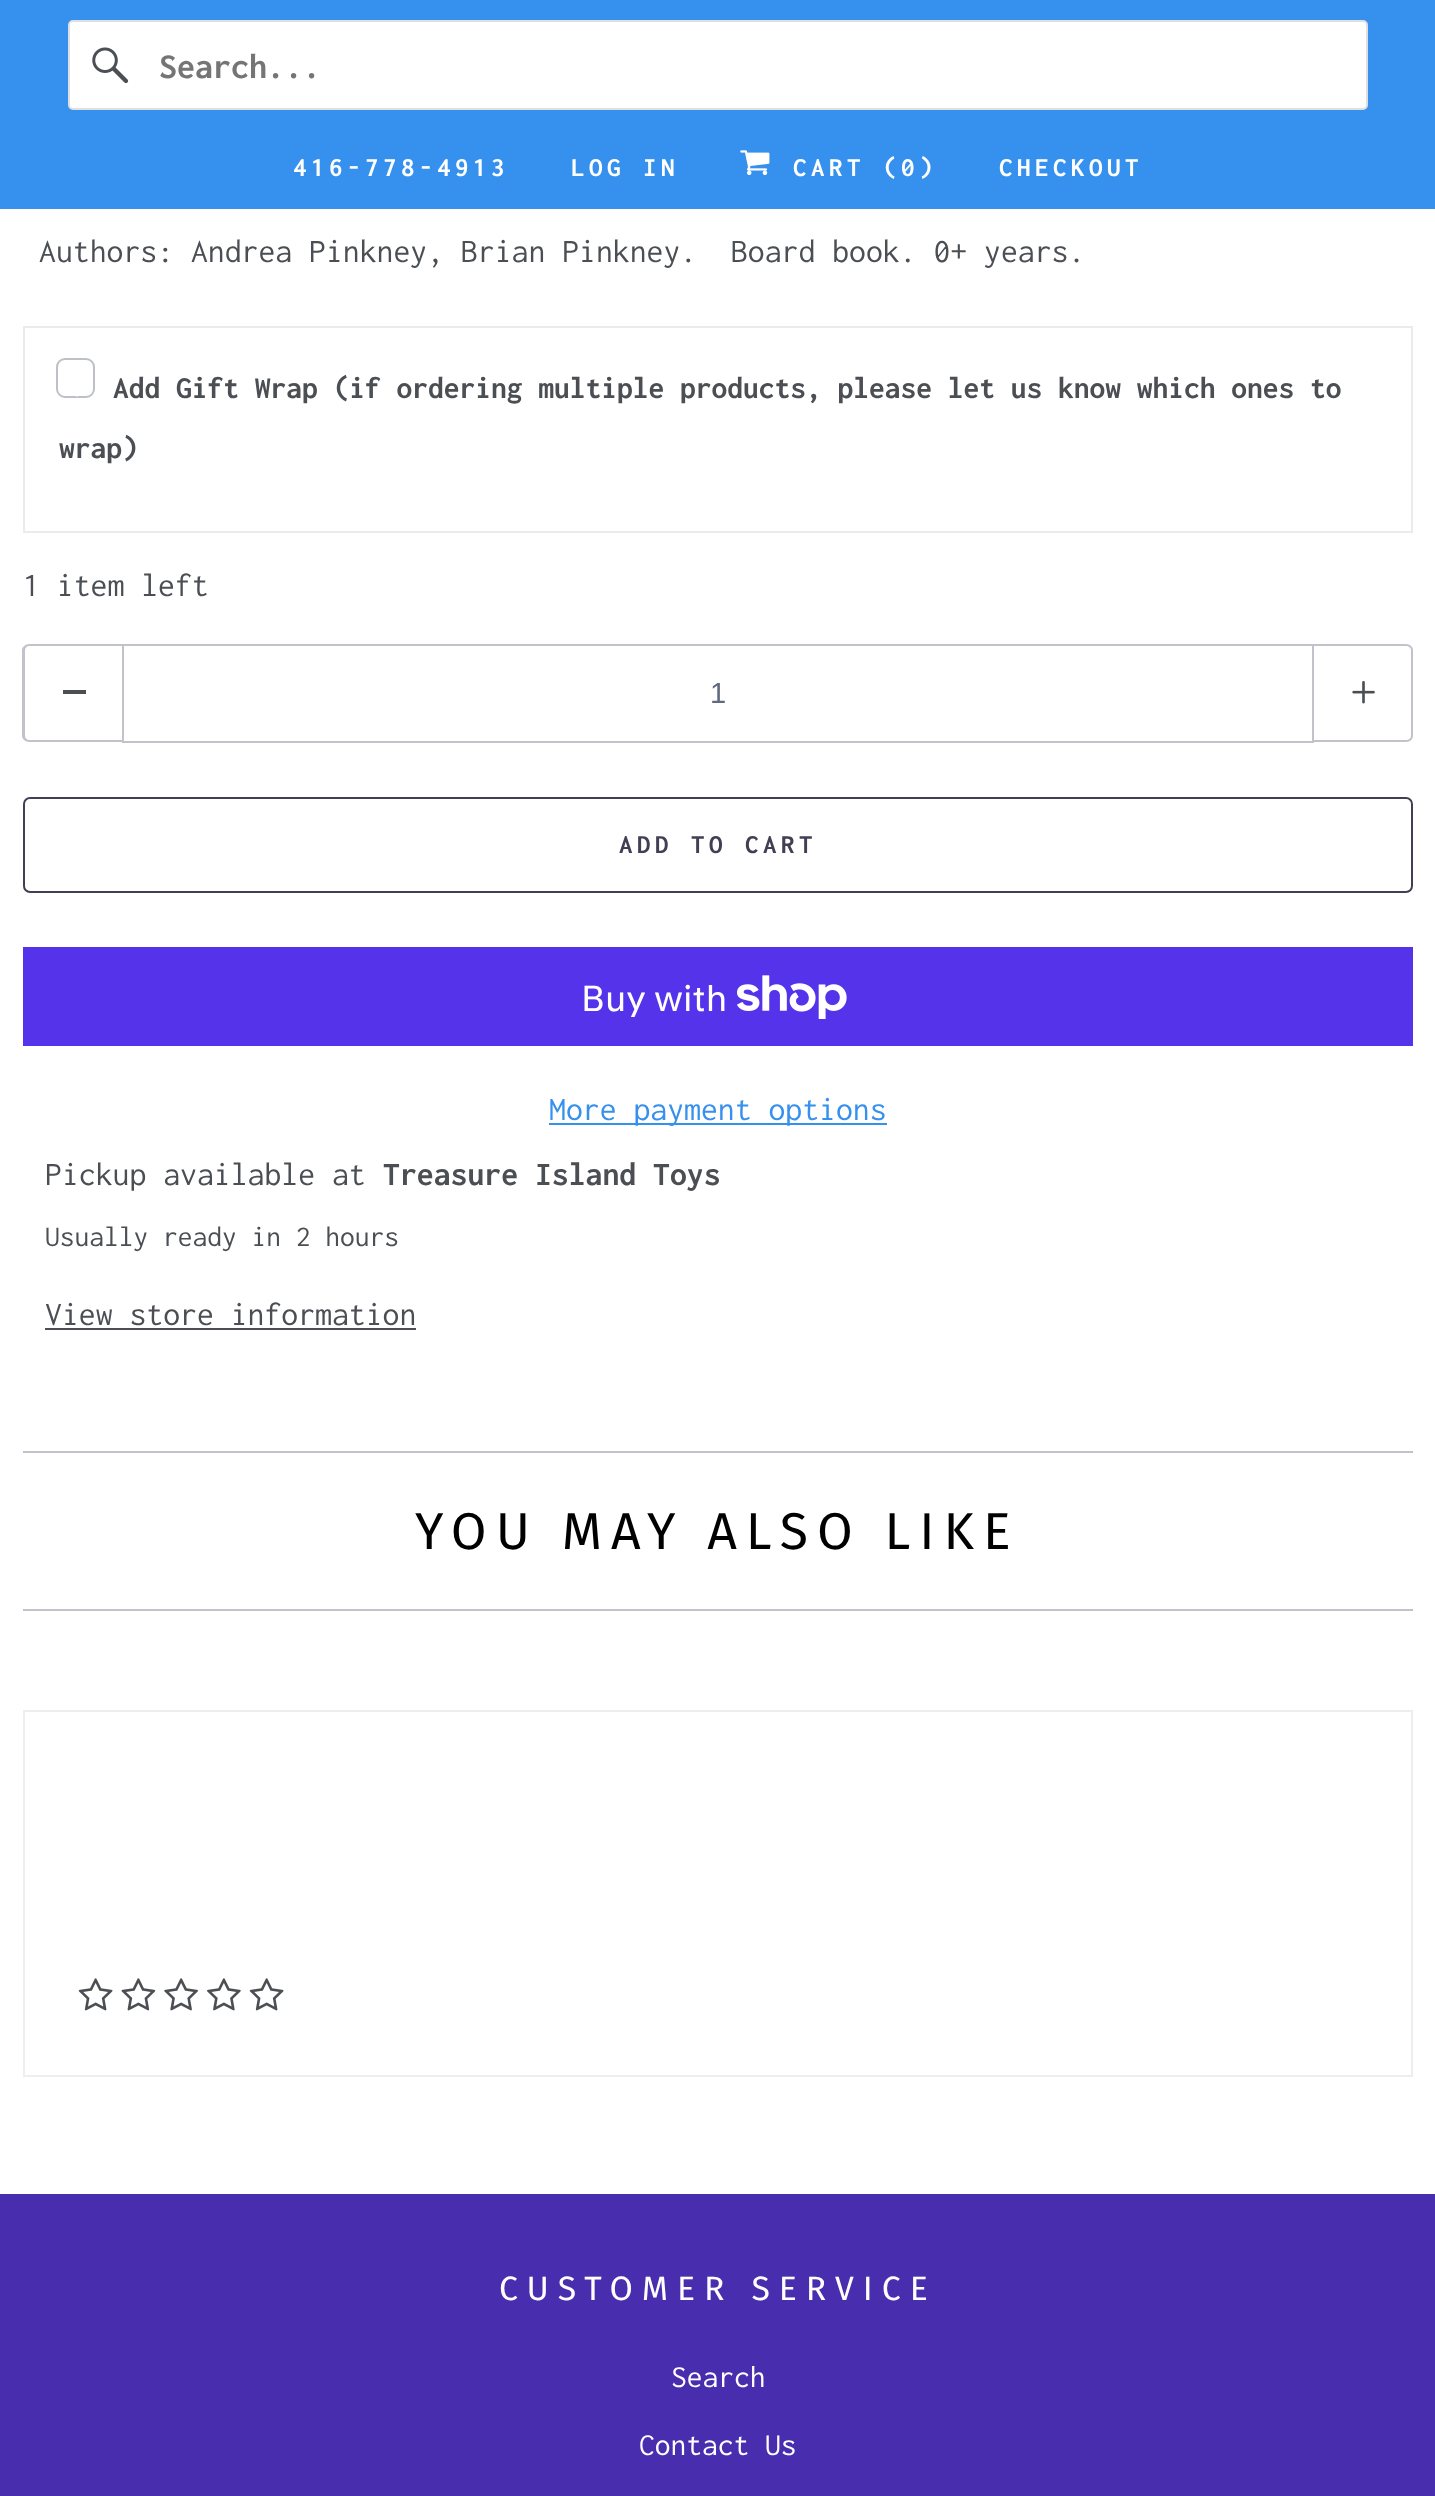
<?xml version="1.0" encoding="UTF-8"?>
<svg xmlns="http://www.w3.org/2000/svg" xmlns:xlink="http://www.w3.org/1999/xlink" width="1435" height="2496">
  <rect width="100%" height="100%" fill="#ffffff" />
  <rect width="1435" height="209" fill="#3690ed" />
  <rect x="69" y="21" width="1298" height="88" rx="4" fill="#ffffff" stroke="#dfdfdf" stroke-width="2" />
  <image x="92" y="47" width="37" height="37" xlink:href="image1.png" />
  <image x="740" y="150" width="30" height="26" xlink:href="image2.png" />
  <rect x="24" y="327" width="1388" height="205" fill="none" stroke="#ebebeb" stroke-width="2" />
  <rect x="57" y="359" width="37" height="38" rx="8" fill="none" stroke="#bdc1c6" stroke-width="2" />
  <path d="M 67.5 381 l 12.5 12.5 l -3 3.5 l -12.5 -13 z" fill="#ffffff" />
  <path d="M 29 644 h 93 v 98 h -93 c -3 0 -7 -3 -7 -6 v -86 c 0 -3 4 -6 7 -6 z m 0 2 h 93 v 94 h -93 c -2 0 -4 -2 -4 -4 v -86 c 0 -2 2 -4 4 -4 z" fill="#c2c1cc" fill-rule="evenodd" />
  <rect x="63" y="690" width="23" height="4" fill="#4b4f54" />
  <rect x="123" y="645" width="1190" height="97" fill="none" stroke="#c2c1cc" stroke-width="2" />
  <path d="M 1314 644 h 92 c 4 0 7 3 7 6 v 86 c 0 3 -3 6 -7 6 h -92 z m 0 2 h 92 c 3 0 5 2 5 4 v 86 c 0 2 -2 4 -5 4 h -92 z" fill="#c2c1cc" fill-rule="evenodd" />
  <image x="1352" y="681" width="23" height="23" xlink:href="image3.png" />
  <rect x="24" y="798" width="1388" height="94" rx="6" fill="none" stroke="#423f54" stroke-width="2" />
  <rect x="23" y="947" width="1390" height="99" fill="#5433eb" />
  <image x="737" y="975" width="110" height="44" xlink:href="image4.png" />
  <rect x="549" y="1123" width="338" height="2" fill="#3690ed" />
  <rect x="45" y="1328" width="371" height="2" fill="#4b4f54" />
  <rect x="23" y="1451" width="1390" height="2" fill="#c2c1cc" />
  <rect x="23" y="1609" width="1390" height="2" fill="#c2c1cc" />
  <rect x="24" y="1711" width="1388" height="365" fill="none" stroke="#eeeeee" stroke-width="2" />
  <image x="78" y="1978" width="35" height="33" xlink:href="image5.png" />
  <image x="121" y="1978" width="35" height="33" xlink:href="image6.png" />
  <image x="164" y="1978" width="34" height="33" xlink:href="image7.png" />
  <image x="207" y="1978" width="34" height="33" xlink:href="image8.png" />
  <image x="249" y="1978" width="35" height="33" xlink:href="image5.png" />
  <rect y="2194" width="1435" height="302" fill="#482eaf" />
  <text x="159" y="78" style="font-family: Inconsolata; font-size: 36px; font-weight: bold; fill: #757575">Search...</text>
  <text x="293" y="176" style="font-family: Inconsolata; font-size: 27px; font-weight: bold; letter-spacing: 4.5px; fill: #ffffff">416-778-4913</text>
  <text x="571" y="176" style="font-family: Inconsolata; font-size: 27px; font-weight: bold; letter-spacing: 4.5px; fill: #ffffff">LOG IN</text>
  <text x="793" y="176" style="font-family: Inconsolata; font-size: 27px; font-weight: bold; letter-spacing: 4.5px; fill: #ffffff">CART (0)</text>
  <text x="999" y="176" style="font-family: Inconsolata; font-size: 27px; font-weight: bold; letter-spacing: 4.5px; fill: #ffffff">CHECKOUT</text>
  <text x="39" y="262" style="font-family: Inconsolata; font-size: 33.75px; fill: #4b4f54" xml:space="preserve">Authors: Andrea Pinkney, Brian Pinkney.  Board book. 0+ years.</text>
  <text x="113" y="398" style="font-family: Inconsolata; font-size: 31.5px; font-weight: bold; fill: #4b4f54">Add Gift Wrap (if ordering multiple products, please let us know which ones to</text>
  <text x="59" y="458" style="font-family: Inconsolata; font-size: 31.5px; font-weight: bold; fill: #4b4f54">wrap)</text>
  <text x="23" y="596" style="font-family: Inconsolata; font-size: 33.75px; fill: #4b4f54">1 item left</text>
  <text x="710" y="703" style="font-family: Liberation Sans; font-size: 29px; fill: #5f6a7d">1</text>
  <text x="619" y="853" style="font-family: Inconsolata; font-size: 27px; font-weight: bold; letter-spacing: 4.5px; fill: #423f54">ADD TO CART</text>
  <text x="581" y="1011" style="font-family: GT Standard; font-size: 36px; fill: #ffffff">Buy with</text>
  <text x="549" y="1120" style="font-family: Inconsolata; font-size: 33.75px; fill: #3690ed">More payment options</text>
  <text x="45" y="1185" style="font-family: Inconsolata; font-size: 33.75px; fill: #4b4f54">Pickup available at</text>
  <text x="383" y="1185" style="font-family: Inconsolata; font-size: 33.75px; font-weight: bold; fill: #4b4f54">Treasure Island Toys</text>
  <text x="45" y="1246" style="font-family: Inconsolata; font-size: 29.5px; fill: #4b4f54">Usually ready in 2 hours</text>
  <text x="45" y="1325" style="font-family: Inconsolata; font-size: 33.75px; fill: #4b4f54">View store information</text>
  <text x="415" y="1549" style="font-family: Fira Sans; font-size: 51.75px; letter-spacing: 9px; fill: #000000">YOU MAY ALSO LIKE</text>
  <text x="499" y="2300" style="font-family: Fira Sans; font-size: 33.75px; letter-spacing: 9px; fill: #ffffff">CUSTOMER SERVICE</text>
  <text x="671" y="2387" style="font-family: Inconsolata; font-size: 31.5px; fill: #ffffff">Search</text>
  <text x="639" y="2455" style="font-family: Inconsolata; font-size: 31.5px; fill: #ffffff">Contact Us</text>
</svg>
